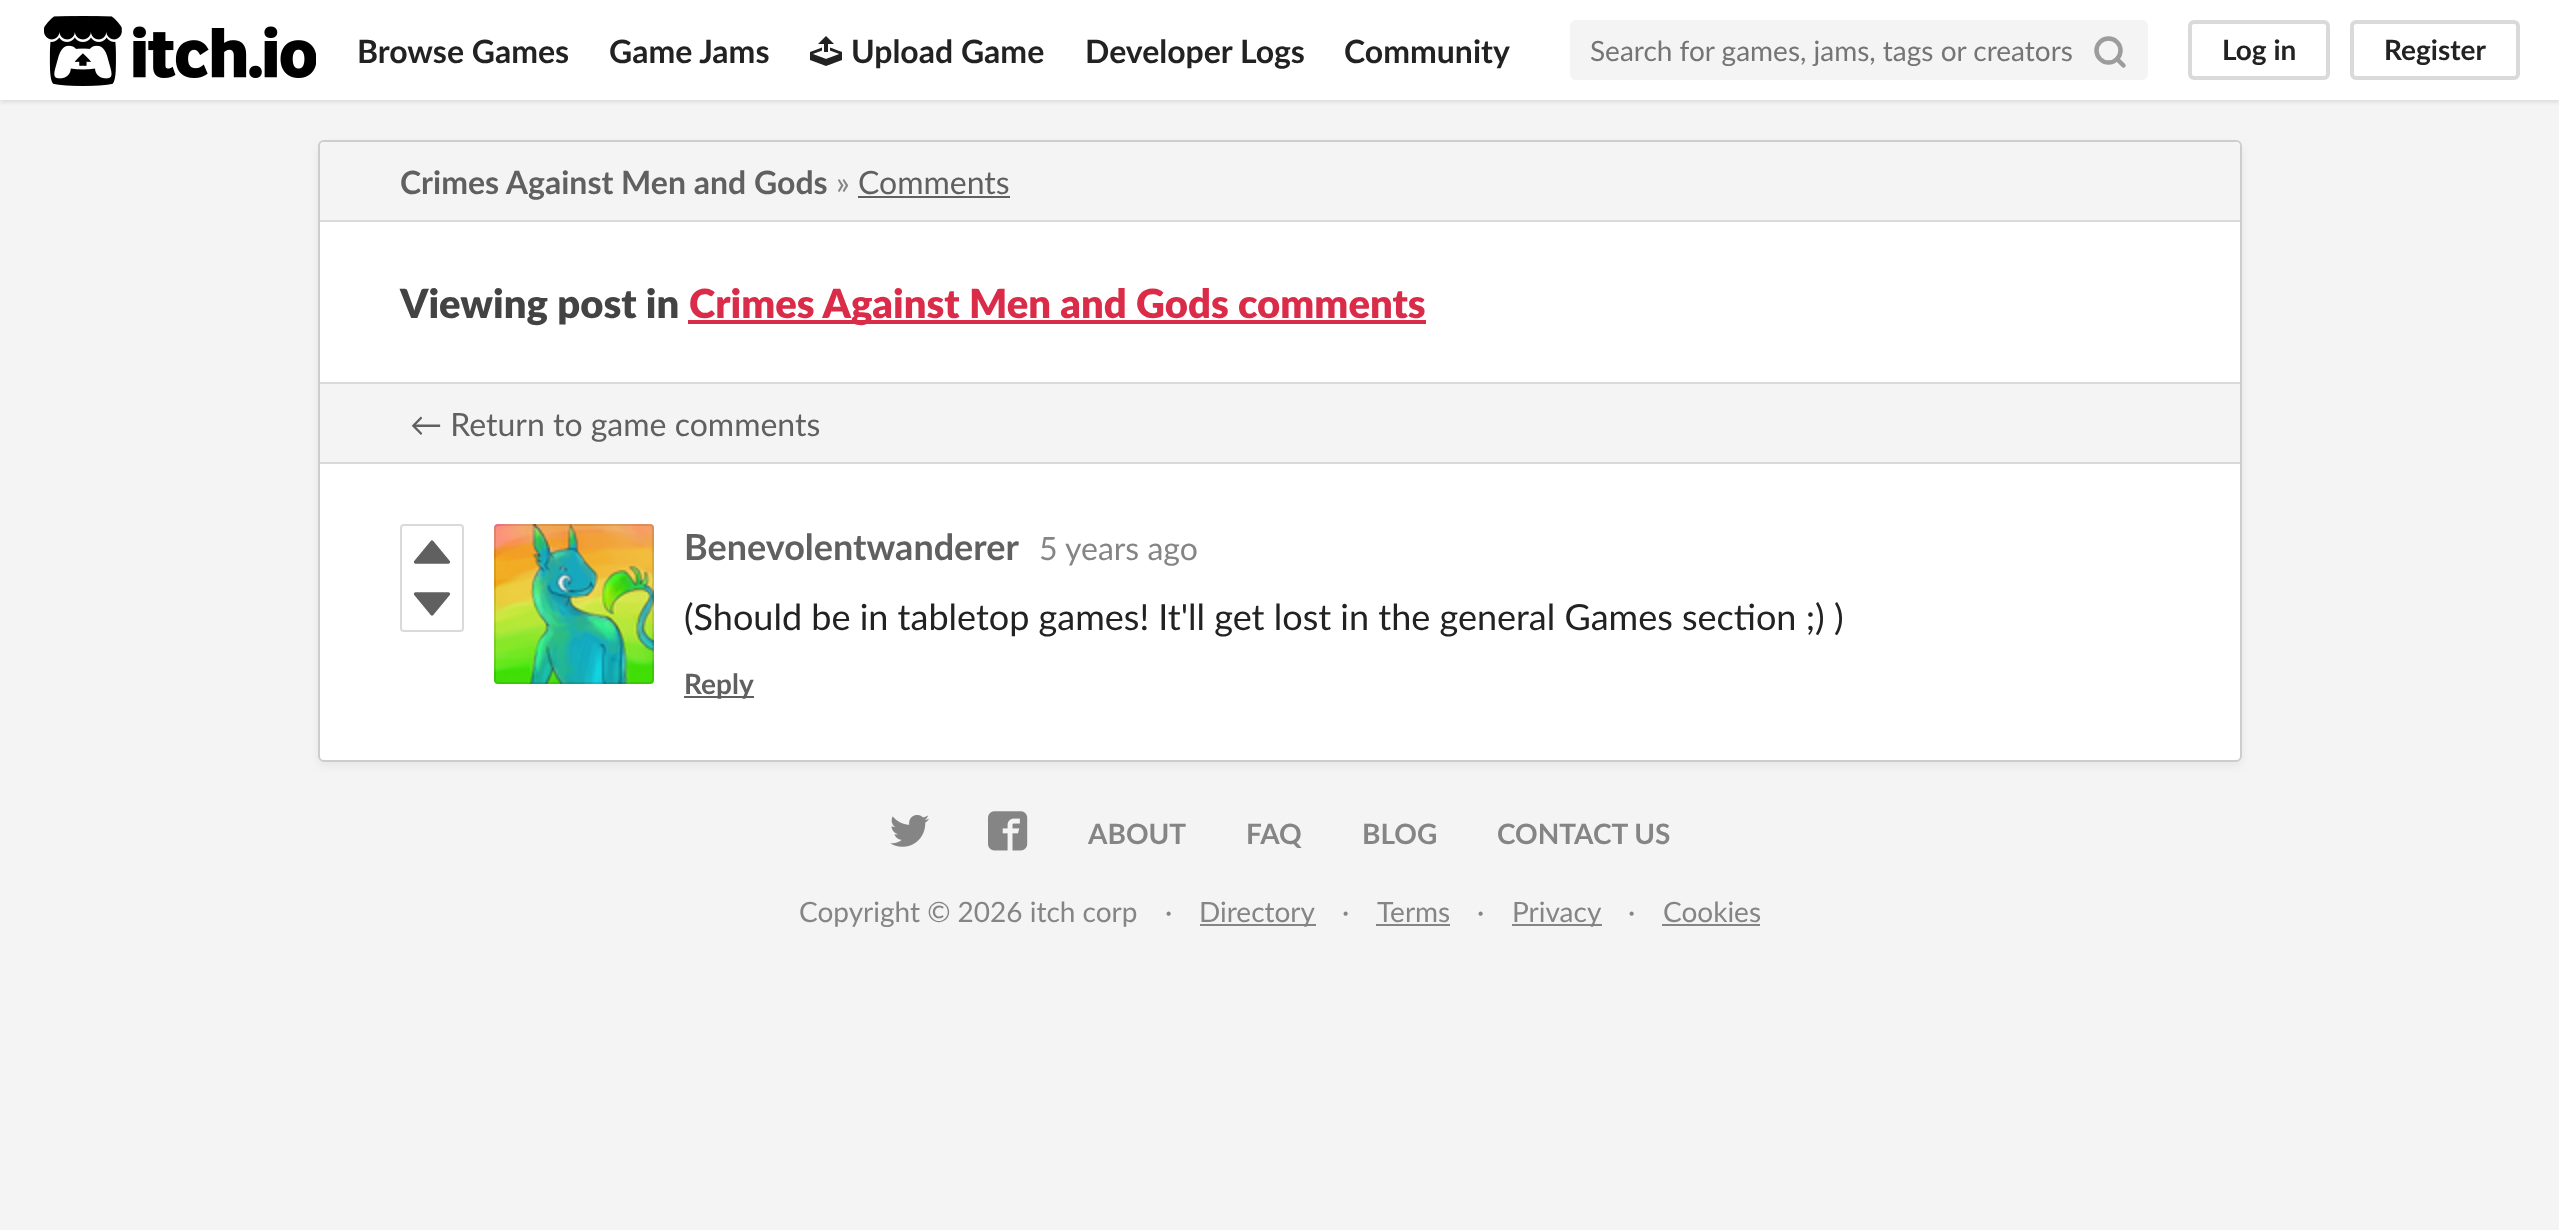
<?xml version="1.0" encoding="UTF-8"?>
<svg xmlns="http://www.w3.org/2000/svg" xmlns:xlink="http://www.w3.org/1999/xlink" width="2559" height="1230">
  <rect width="100%" height="100%" fill="#f4f4f4" />
  <rect y="2" width="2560" height="100" fill="#000000" fill-opacity="0.1" filter="blur(2px)" />
  <rect width="2559" height="100" fill="#ffffff" />
  <image x="44" y="16" width="272" height="70" xlink:href="image1.png" />
  <image x="810" y="36" width="32" height="30" xlink:href="image2.png" />
  <rect x="1570" y="20" width="578" height="60" rx="6" fill="#f4f4f4" />
  <circle cx="2108.5" cy="50.5" r="12" fill="none" stroke="#9c9c9c" stroke-width="4.5" />
  <path d="M 2123.5 65.5 l -6.5 -6.5" fill="none" stroke="#9c9c9c" stroke-width="4.5" stroke-linecap="round" stroke-linejoin="round" />
  <rect x="2190" y="22" width="138" height="56" rx="4" fill="none" stroke="#dadada" stroke-width="4" />
  <rect x="2352" y="22" width="166" height="56" rx="4" fill="none" stroke="#dadada" stroke-width="4" />
  <rect x="318" y="144" width="1924" height="622" rx="6" fill="#000000" fill-opacity="0.05" filter="blur(4px)" />
  <rect x="319" y="141" width="1922" height="620" rx="5" fill="#ffffff" stroke="#cdcdcd" stroke-width="2" />
  <path d="M 326 142 h 1908 c 3.5 0 6 2.5 6 6 v 74 h -1920 v -74 c 0 -3.5 2.5 -6 6 -6 z" fill="#f4f4f4" />
  <rect x="320" y="220" width="1920" height="2" fill="#dadada" />
  <rect x="858" y="196" width="152" height="2" fill="#606060" />
  <rect x="320" y="382" width="1920" height="2" fill="#dadada" />
  <rect x="688" y="320" width="738" height="4" fill="#da2c49" />
  <rect x="320" y="384" width="1920" height="78" fill="#f4f4f4" />
  <rect x="320" y="462" width="1920" height="2" fill="#dadada" />
  <rect x="401" y="525" width="62" height="106" rx="3" fill="none" stroke="#dadada" stroke-width="2" />
  <path d="M 415.5 562 l 16.5 -20 l 16.5 20 z" fill="#606060" stroke="#606060" stroke-width="3.3" stroke-linejoin="round" />
  <path d="M 415.5 594 l 16.5 20 l 16.5 -20 z" fill="#606060" stroke="#606060" stroke-width="3.3" stroke-linejoin="round" />
  <image x="494" y="524" width="160" height="160" xlink:href="image3.png" />
  <rect x="495" y="525" width="158" height="158" rx="3" fill="none" stroke="#000000" stroke-opacity="0.1" stroke-width="2" />
  <rect x="684" y="696" width="70" height="2" fill="#606060" />
  <image x="890" y="815" width="39" height="32" xlink:href="image4.png" />
  <image x="988" y="811" width="40" height="40" xlink:href="image5.png" />
  <rect x="1200" y="924" width="116" height="2" fill="#858585" />
  <rect x="1376" y="924" width="74" height="2" fill="#858585" />
  <rect x="1512" y="924" width="90" height="2" fill="#858585" />
  <rect x="1662" y="924" width="98" height="2" fill="#858585" />
  <text x="357" y="63" style="font-family: Lato; font-size: 32px; font-weight: bold; fill: #222222">Browse Games</text>
  <text x="609" y="63" style="font-family: Lato; font-size: 32px; font-weight: bold; fill: #222222">Game Jams</text>
  <text x="851" y="63" style="font-family: Lato; font-size: 32px; font-weight: bold; fill: #222222">Upload Game</text>
  <text x="1085" y="63" style="font-family: Lato; font-size: 32px; font-weight: bold; fill: #222222">Developer Logs</text>
  <text x="1344" y="63" style="font-family: Lato; font-size: 32px; font-weight: bold; fill: #222222">Community</text>
  <text x="1590" y="61" style="font-family: Lato; font-size: 28px; fill: #757575">Search for games, jams, tags or creators</text>
  <text x="2222" y="60" style="font-family: Lato; font-size: 28px; font-weight: bold; fill: #222222">Log in</text>
  <text x="2384" y="60" style="font-family: Lato; font-size: 28px; font-weight: bold; fill: #222222">Register</text>
  <text x="400" y="194" style="font-family: Lato; font-size: 32px; font-weight: bold; fill: #606060">Crimes Against Men and Gods</text>
  <text x="836" y="194" style="font-family: Lato; font-size: 32px; fill: #858585">»</text>
  <text x="858" y="194" style="font-family: Lato; font-size: 32px; fill: #606060">Comments</text>
  <text x="400" y="318" style="font-family: Lato; font-size: 40px; font-weight: 900; fill: #434343">Viewing post in</text>
  <text x="689" y="318" style="font-family: Lato; font-size: 40px; font-weight: 900; fill: #da2c49">Crimes Against Men and Gods comments</text>
  <text x="410" y="436" style="font-family: Lato; font-size: 32px; fill: #606060">← Return to game comments</text>
  <text x="684" y="560" style="font-family: Lato; font-size: 36px; font-weight: bold; fill: #606060">Benevolentwanderer</text>
  <text x="1039" y="560" style="font-family: Lato; font-size: 32px; fill: #858585">5 years ago</text>
  <text x="684" y="630" style="font-family: Lato; font-size: 36px; fill: #222222">(Should be in tabletop games! It'll get lost in the general Games section ;) )</text>
  <text x="684" y="694" style="font-family: Lato; font-size: 28px; font-weight: bold; fill: #606060">Reply</text>
  <text x="1088" y="844" style="font-family: Lato; font-size: 28px; font-weight: bold; fill: #858585">ABOUT</text>
  <text x="1246" y="844" style="font-family: Lato; font-size: 28px; font-weight: bold; fill: #858585">FAQ</text>
  <text x="1362" y="844" style="font-family: Lato; font-size: 28px; font-weight: bold; fill: #858585">BLOG</text>
  <text x="1497" y="844" style="font-family: Lato; font-size: 28px; font-weight: bold; fill: #858585">CONTACT US</text>
  <text x="799" y="922" style="font-family: Lato; font-size: 28px; fill: #858585">Copyright © 2026 itch corp</text>
  <text x="1165" y="922" style="font-family: Lato; font-size: 28px; fill: #858585">·</text>
  <text x="1199" y="922" style="font-family: Lato; font-size: 28px; fill: #858585">Directory</text>
  <text x="1342" y="922" style="font-family: Lato; font-size: 28px; fill: #858585">·</text>
  <text x="1377" y="922" style="font-family: Lato; font-size: 28px; fill: #858585">Terms</text>
  <text x="1477" y="922" style="font-family: Lato; font-size: 28px; fill: #858585">·</text>
  <text x="1512" y="922" style="font-family: Lato; font-size: 28px; fill: #858585">Privacy</text>
  <text x="1628" y="922" style="font-family: Lato; font-size: 28px; fill: #858585">·</text>
  <text x="1663" y="922" style="font-family: Lato; font-size: 28px; fill: #858585">Cookies</text>
</svg>
